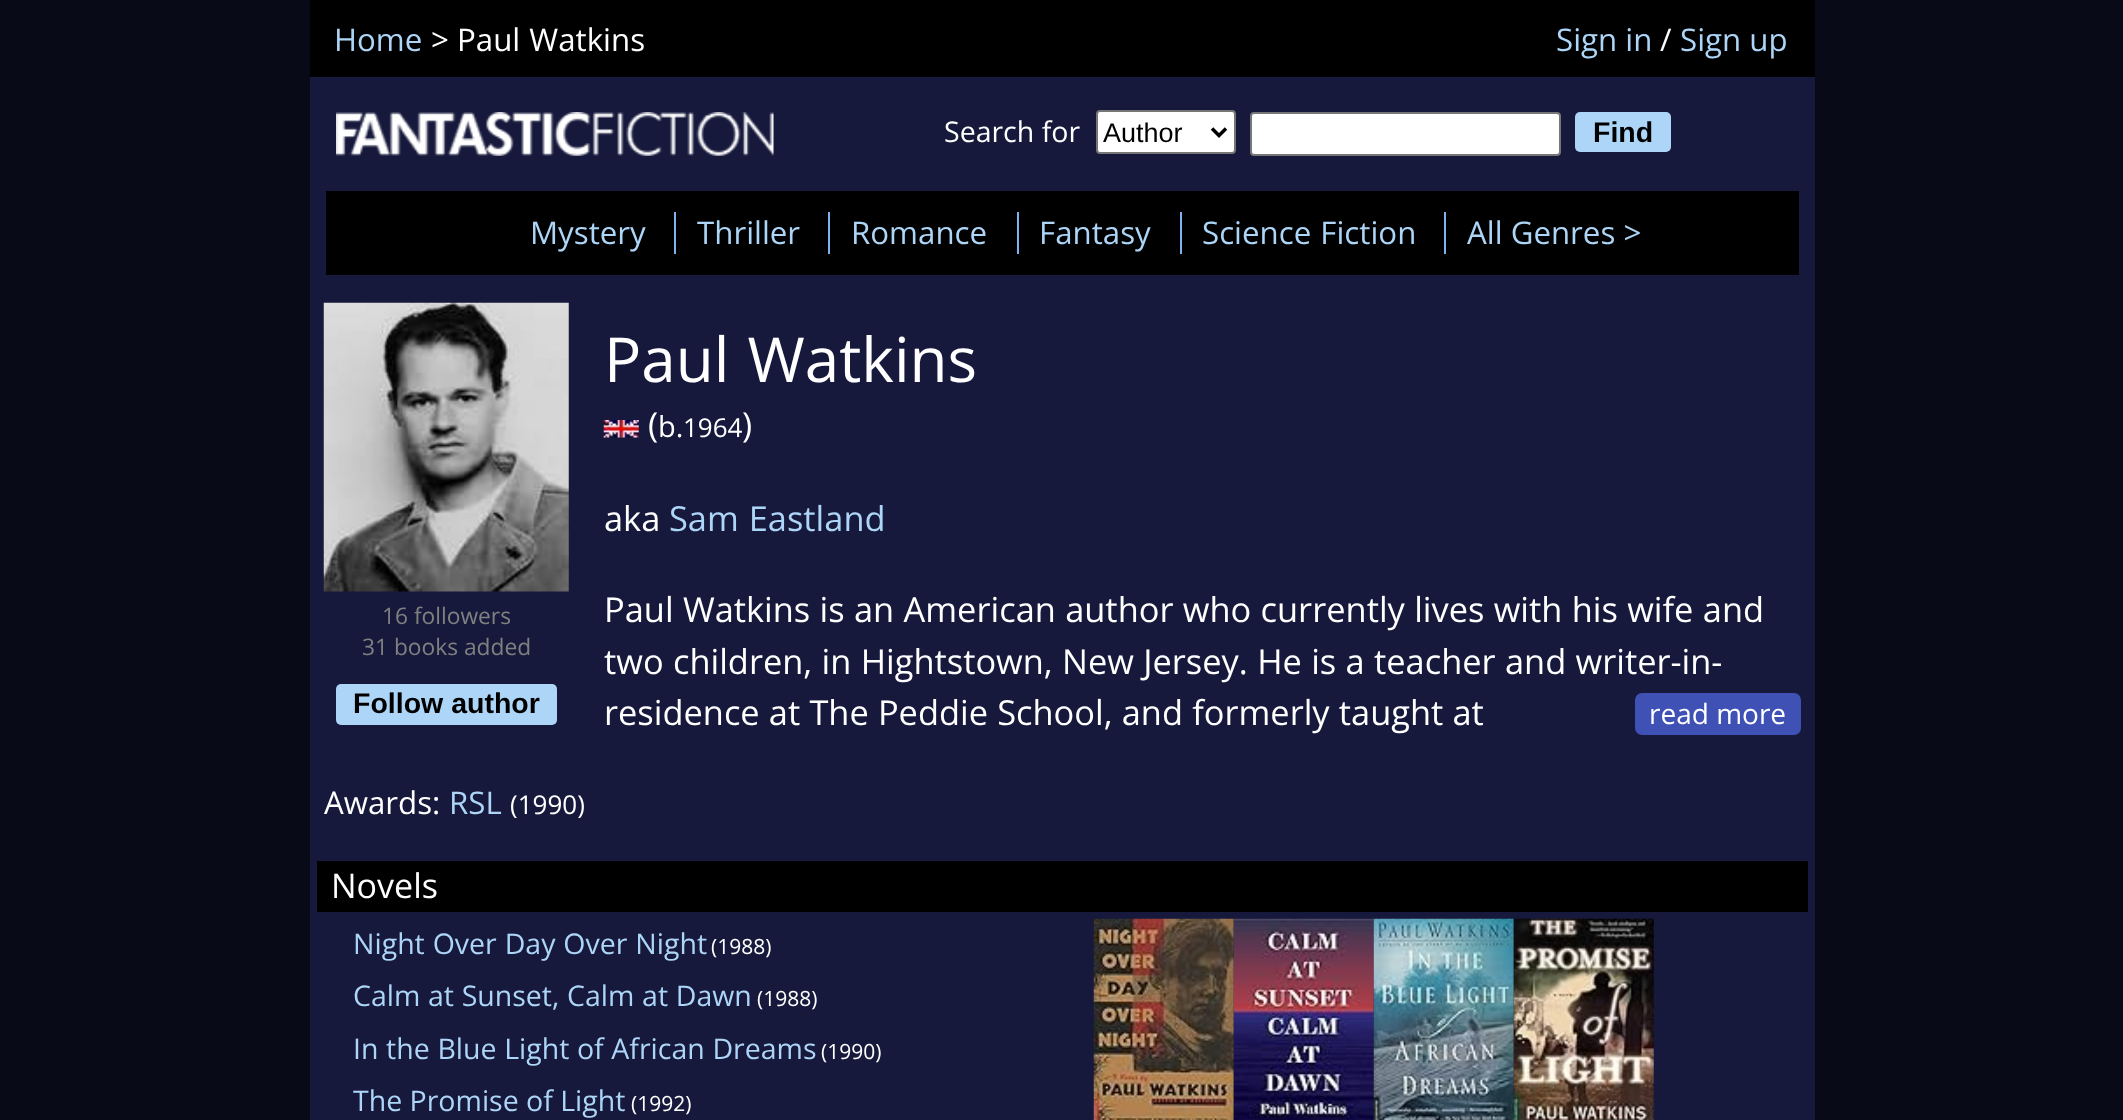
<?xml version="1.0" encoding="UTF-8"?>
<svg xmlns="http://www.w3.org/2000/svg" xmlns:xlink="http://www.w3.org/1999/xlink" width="2123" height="1120">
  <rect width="100%" height="100%" fill="#090a17" />
  <rect x="310" width="1505" height="77" fill="#000000" />
  <rect x="310" y="77" width="1505" height="1043" fill="#16193b" />
  <image x="336" y="112" width="438" height="44" xlink:href="image1.png" />
  <rect x="1097" y="111" width="138" height="42" rx="3" fill="#ffffff" stroke="#767676" stroke-width="2" />
  <path d="M 1212 128.5 l 7 7 l 7 -7" fill="none" stroke="#000000" stroke-width="3.5" />
  <rect x="1251" y="113" width="309" height="42" rx="3" fill="#ffffff" stroke="#767676" stroke-width="2" />
  <rect x="1575" y="112" width="96" height="40" rx="5" fill="#add5f7" />
  <rect x="326" y="191" width="1473" height="84" fill="#000000" />
  <rect x="674" y="212" width="2" height="42" fill="#7fb2f0" />
  <rect x="828" y="212" width="2" height="42" fill="#7fb2f0" />
  <rect x="1017" y="212" width="2" height="42" fill="#7fb2f0" />
  <rect x="1180" y="212" width="2" height="42" fill="#7fb2f0" />
  <rect x="1444" y="212" width="2" height="42" fill="#7fb2f0" />
  <image x="603" y="420" width="36" height="18" xlink:href="image2.png" />
  <rect x="1635" y="693" width="166" height="42" rx="7" fill="#3f51b5" />
  <image x="323" y="302" width="246" height="290" xlink:href="image3.png" />
  <rect x="336" y="684" width="221" height="41" rx="5" fill="#add5f7" />
  <rect x="317" y="861" width="1491" height="51" fill="#000000" />
  <image x="1093" y="918" width="141" height="202" xlink:href="image4.png" />
  <image x="1233" y="918" width="141" height="202" xlink:href="image5.png" />
  <image x="1373" y="918" width="141" height="202" xlink:href="image6.png" />
  <image x="1513" y="918" width="141" height="202" xlink:href="image7.png" />
  <text x="334" y="51" style="font-family: Open Sans; font-size: 31.25px; fill: #add5f7">Home</text>
  <text x="431" y="51" style="font-family: Open Sans; font-size: 31.25px; fill: #ffffff">&gt;</text>
  <text x="457" y="51" word-spacing="1" style="font-family: Open Sans; font-size: 31.25px; fill: #ffffff">Paul Watkins</text>
  <text x="1556" y="51" style="font-family: Open Sans; font-size: 31.25px; fill: #add5f7">Sign in</text>
  <text x="1660" y="51" style="font-family: Open Sans; font-size: 31.25px; fill: #ffffff">/</text>
  <text x="1680" y="51" style="font-family: Open Sans; font-size: 31.25px; fill: #add5f7">Sign up</text>
  <text x="944" y="142" style="font-family: Open Sans; font-size: 28.5px; fill: #ffffff">Search for</text>
  <text x="1103" y="142" style="font-family: Liberation Sans; font-size: 27px; fill: #000000">Author</text>
  <text x="1593" y="142" style="font-family: Liberation Sans; font-size: 28.5px; font-weight: bold; fill: #000000">Find</text>
  <text x="530" y="244" style="font-family: Open Sans; font-size: 31.25px; fill: #add5f7">Mystery</text>
  <text x="697" y="244" style="font-family: Open Sans; font-size: 31.25px; fill: #add5f7">Thriller</text>
  <text x="851" y="244" style="font-family: Open Sans; font-size: 31.25px; fill: #add5f7">Romance</text>
  <text x="1039" y="244" style="font-family: Open Sans; font-size: 31.25px; fill: #add5f7">Fantasy</text>
  <text x="1202" y="244" word-spacing="1" style="font-family: Open Sans; font-size: 31.25px; fill: #add5f7">Science Fiction</text>
  <text x="1467" y="244" style="font-family: Open Sans; font-size: 31.25px; fill: #add5f7">All Genres &gt;</text>
  <text x="604" y="382" word-spacing="2" style="font-family: Open Sans; font-size: 62px; fill: #ffffff">Paul Watkins</text>
  <text x="648" y="437" style="font-family: Open Sans; font-size: 34.4px; fill: #ffffff">(</text>
  <text x="658" y="437" style="font-family: Open Sans; font-size: 29px; fill: #ffffff">b.</text>
  <text x="683" y="437" style="font-family: Open Sans; font-size: 26px; fill: #ffffff">1964</text>
  <text x="742" y="437" style="font-family: Open Sans; font-size: 34.4px; fill: #ffffff">)</text>
  <text x="604" y="531" style="font-family: Open Sans; font-size: 34.4px; fill: #ffffff">aka</text>
  <text x="669" y="531" word-spacing="1" style="font-family: Open Sans; font-size: 34.4px; fill: #add5f7">Sam Eastland</text>
  <text x="604" y="622" word-spacing="0.4" style="font-family: Open Sans; font-size: 34.4px; fill: #ffffff">Paul Watkins is an American author who currently lives with his wife and</text>
  <text x="604" y="674" word-spacing="0.4" style="font-family: Open Sans; font-size: 34.4px; fill: #ffffff">two children, in Hightstown, New Jersey. He is a teacher and writer-in-</text>
  <text x="604" y="725" word-spacing="0.25" style="font-family: Open Sans; font-size: 34.4px; fill: #ffffff">residence at The Peddie School, and formerly taught at</text>
  <text x="1649" y="724" style="font-family: Open Sans; font-size: 28px; fill: #ffffff">read more</text>
  <text x="324" y="814" style="font-family: Open Sans; font-size: 31.25px; fill: #ffffff">Awards:</text>
  <text x="449" y="814" style="font-family: Open Sans; font-size: 31.25px; fill: #add5f7">RSL</text>
  <text x="510" y="814" style="font-family: Open Sans; font-size: 26px; fill: #ffffff">(1990)</text>
  <text x="382" y="624" style="font-family: Open Sans; font-size: 22.75px; fill: #808080">16 followers</text>
  <text x="362" y="655" style="font-family: Open Sans; font-size: 22.75px; fill: #808080">31 books added</text>
  <text x="353" y="713" style="font-family: Liberation Sans; font-size: 28.5px; font-weight: bold; fill: #000000">Follow author</text>
  <text x="331" y="898" style="font-family: Open Sans; font-size: 34px; fill: #ffffff">Novels</text>
  <text x="353" y="954" word-spacing="0.5" style="font-family: Open Sans; font-size: 28.5px; fill: #add5f7">Night Over Day Over Night</text>
  <text x="711" y="954" style="font-family: Open Sans; font-size: 21px; fill: #ffffff">(1988)</text>
  <text x="353" y="1006" word-spacing="0.25" style="font-family: Open Sans; font-size: 28.5px; fill: #add5f7">Calm at Sunset, Calm at Dawn</text>
  <text x="757" y="1006" style="font-family: Open Sans; font-size: 21px; fill: #ffffff">(1988)</text>
  <text x="353" y="1059" word-spacing="0.25" style="font-family: Open Sans; font-size: 28.5px; fill: #add5f7">In the Blue Light of African Dreams</text>
  <text x="821" y="1059" style="font-family: Open Sans; font-size: 21px; fill: #ffffff">(1990)</text>
  <text x="353" y="1111" style="font-family: Open Sans; font-size: 28.5px; fill: #add5f7">The Promise of Light</text>
  <text x="631" y="1111" style="font-family: Open Sans; font-size: 21px; fill: #ffffff">(1992)</text>
</svg>
